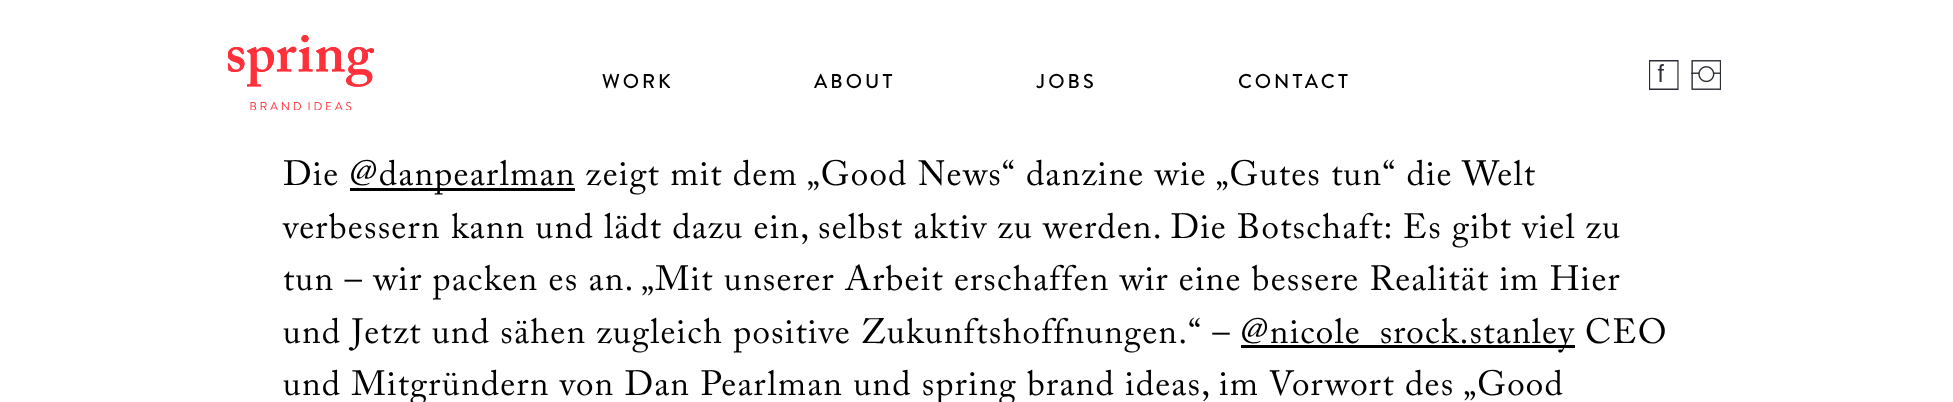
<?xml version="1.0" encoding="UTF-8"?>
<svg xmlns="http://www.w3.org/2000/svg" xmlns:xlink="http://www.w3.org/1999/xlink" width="1953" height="402">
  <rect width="100%" height="100%" fill="#ffffff" />
  <image x="228" y="35" width="146" height="75" xlink:href="image1.png" />
  <image x="1649" y="60" width="30" height="30" xlink:href="image2.png" />
  <image x="1691" y="60" width="30" height="30" xlink:href="image3.png" />
  <rect x="350" y="188" width="225" height="3" fill="#000000" />
  <rect x="1241" y="345" width="334" height="3" fill="#000000" />
  <text x="602" y="88" style="font-family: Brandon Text; font-size: 20px; font-weight: 500; letter-spacing: 3px; fill: #000000">WORK</text>
  <text x="814" y="88" style="font-family: Brandon Text; font-size: 20px; font-weight: 500; letter-spacing: 3px; fill: #000000">ABOUT</text>
  <text x="1036" y="88" style="font-family: Brandon Text; font-size: 20px; font-weight: 500; letter-spacing: 3px; fill: #000000">JOBS</text>
  <text x="1238" y="88" style="font-family: Brandon Text; font-size: 20px; font-weight: 500; letter-spacing: 3px; fill: #000000">CONTACT</text>
  <text x="283" y="185" style="font-family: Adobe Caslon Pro; font-size: 35px; letter-spacing: 1.25px; fill: #000000">Die</text>
  <text x="350" y="185" style="font-family: Adobe Caslon Pro; font-size: 35px; letter-spacing: 1.25px; fill: #000000">@danpearlman zeigt mit dem „Good News“ danzine wie „Gutes tun“ die Welt</text>
  <text x="283" y="238" style="font-family: Adobe Caslon Pro; font-size: 35px; letter-spacing: 1.25px; fill: #000000">verbessern kann und lädt dazu ein, selbst aktiv zu werden. Die Botschaft: Es gibt viel zu</text>
  <text x="283" y="290" style="font-family: Adobe Caslon Pro; font-size: 35px; letter-spacing: 1.25px; fill: #000000">tun – wir packen es an. „Mit unserer Arbeit erschaffen wir eine bessere Realität im Hier</text>
  <text x="283" y="343" style="font-family: Adobe Caslon Pro; font-size: 35px; letter-spacing: 1.25px; fill: #000000">und Jetzt und sähen zugleich positive Zukunftshoffnungen.“ –</text>
  <text x="1241" y="343" style="font-family: Adobe Caslon Pro; font-size: 35px; letter-spacing: 1.25px; fill: #000000">@nicole_srock.stanley CEO</text>
  <text x="283" y="395" style="font-family: Adobe Caslon Pro; font-size: 35px; letter-spacing: 1.25px; fill: #000000">und Mitgründern von Dan Pearlman und spring brand ideas, im Vorwort des „Good</text>
</svg>
